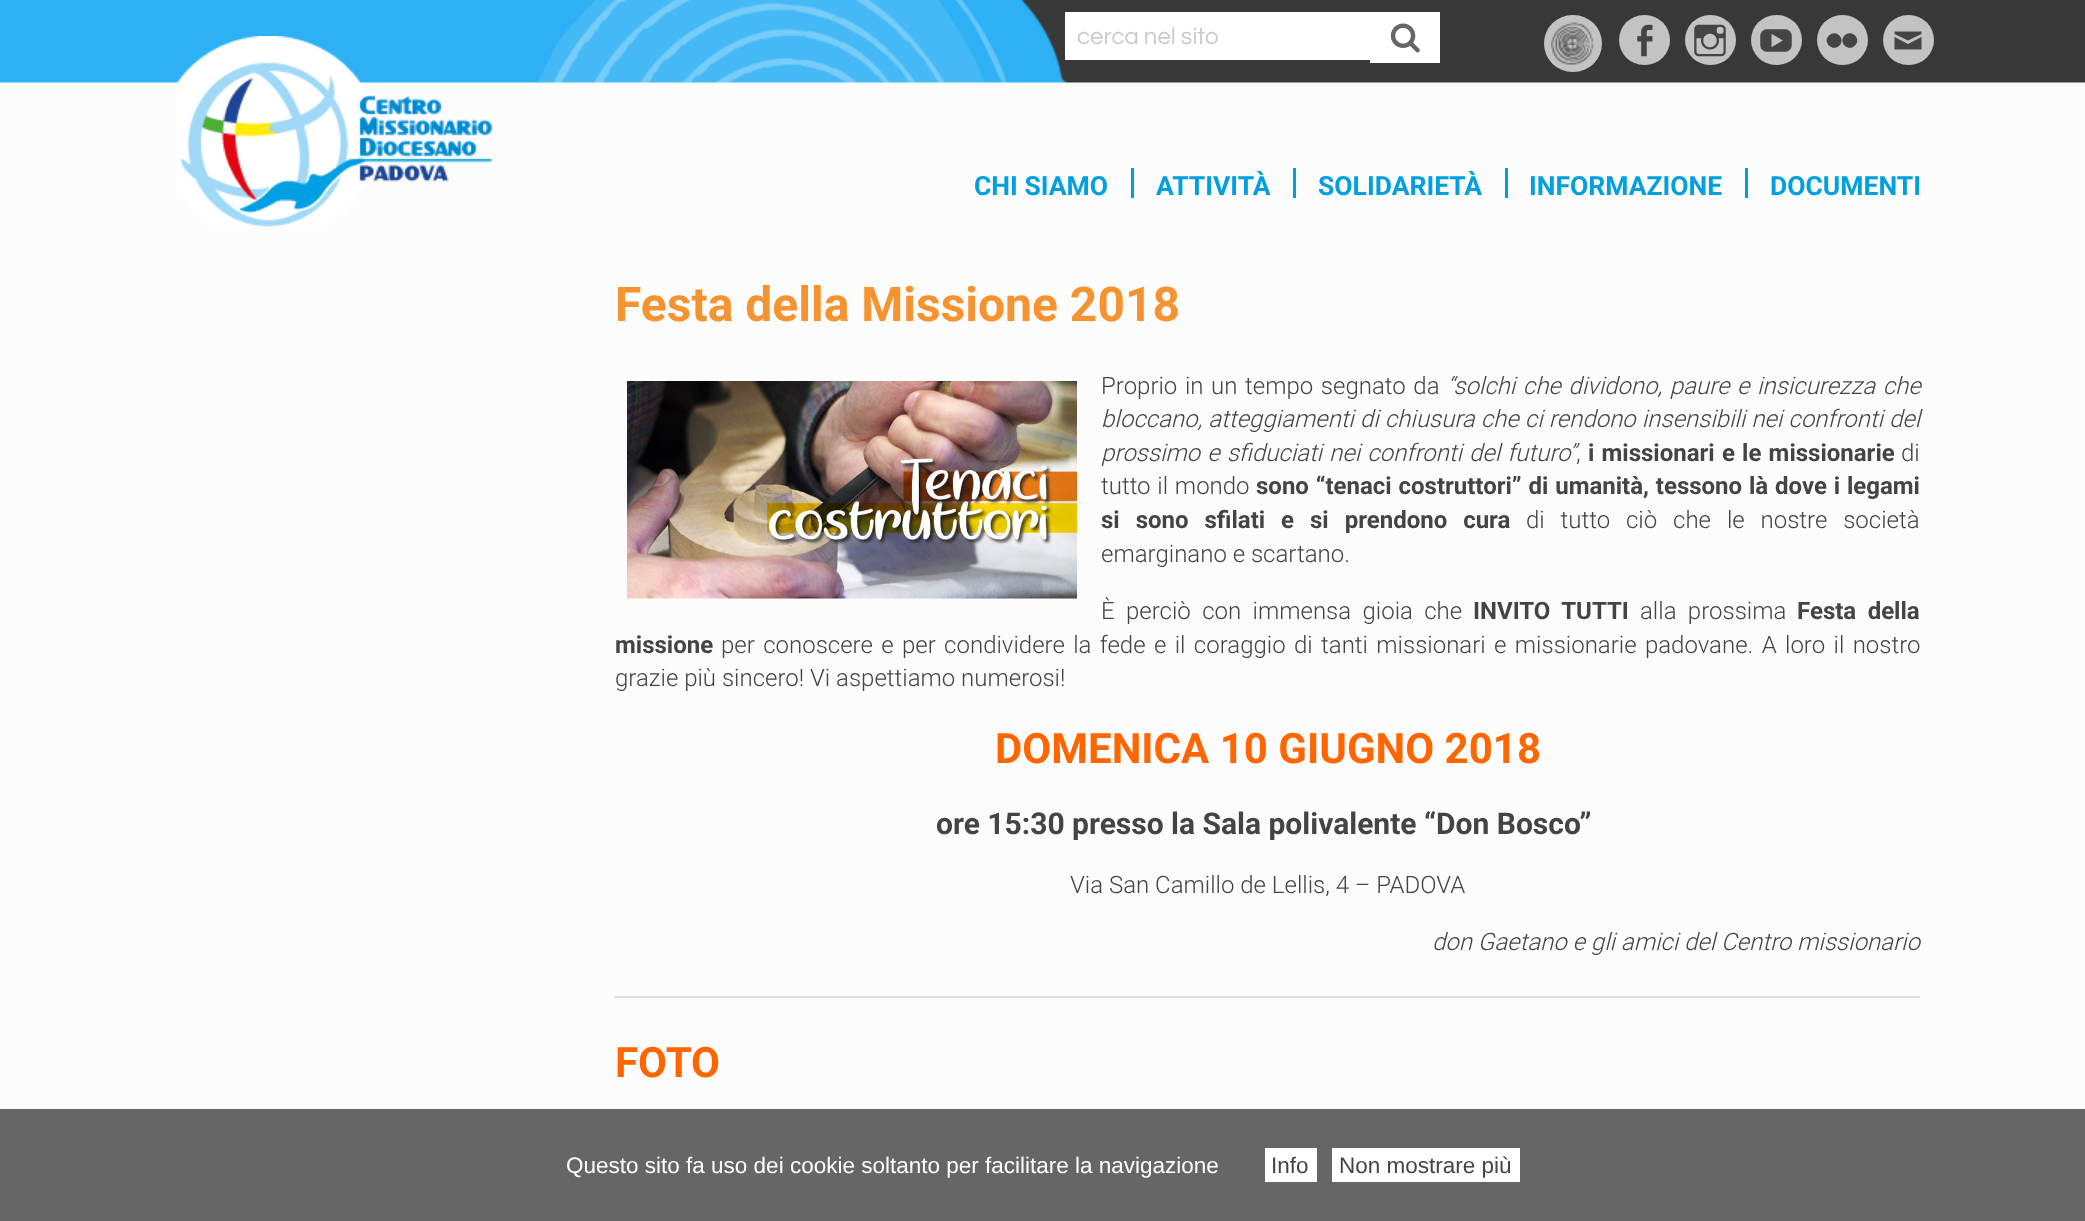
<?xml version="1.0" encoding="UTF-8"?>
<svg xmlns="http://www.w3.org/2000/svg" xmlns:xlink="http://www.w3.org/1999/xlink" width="2085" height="1221">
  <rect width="100%" height="100%" fill="#fcfcfc" />
  <image x="0" y="0" width="2085" height="83" xlink:href="image1.png" />
  <image x="176" y="36" width="317" height="191" xlink:href="image2.png" />
  <rect x="1065" y="12" width="305" height="48" fill="#ffffff" />
  <rect x="1370" y="12" width="70" height="51" fill="#ffffff" />
  <image x="1390" y="23" width="30" height="30" xlink:href="image3.png" />
  <rect x="1544" y="15" width="58" height="57" rx="28.5" fill="#c3c3c3" />
  <image x="1551" y="22" width="43" height="43" xlink:href="image4.png" />
  <rect x="1619" y="15" width="51" height="50" rx="25" fill="#c3c3c3" />
  <image x="1637" y="24" width="16" height="33" xlink:href="image5.png" />
  <rect x="1685" y="15" width="51" height="50" rx="25" fill="#c3c3c3" />
  <image x="1694" y="24" width="32" height="33" xlink:href="image6.png" />
  <rect x="1751" y="15" width="51" height="50" rx="25" fill="#c3c3c3" />
  <image x="1760" y="29" width="32" height="23" xlink:href="image7.png" />
  <rect x="1817" y="15" width="51" height="50" rx="25" fill="#c3c3c3" />
  <path d="M 1844.5 35.5 c 7 -7 17.5 3.5 10.5 10 c -7 7 -17 -3.5 -10.5 -10 z m -15.5 0 c 7 -7 17 3.5 10.5 10 c -7 7 -17.5 -3.5 -10.5 -10 z" fill="#444444" />
  <rect x="1883" y="15" width="51" height="50" rx="25" fill="#c3c3c3" />
  <path d="M 1894.5 31.5 h 27 v 2.5 l -13.5 6.5 l -13.5 -6.5 z m 0 5.5 l 13.5 7 l 13.5 -7 v 12.5 h -27 z" fill="#444444" />
  <rect x="1131" y="168" width="3" height="30" fill="#00a0e0" />
  <rect x="1293" y="168" width="3" height="30" fill="#00a0e0" />
  <rect x="1505" y="168" width="3" height="30" fill="#00a0e0" />
  <rect x="1745" y="168" width="3" height="30" fill="#00a0e0" />
  <image x="627" y="381" width="450" height="218" xlink:href="image8.png" />
  <rect x="615" y="996" width="1305" height="2" fill="#dddddd" />
  <rect y="1109" width="2085" height="112" fill="#666666" />
  <rect x="1265" y="1148" width="52" height="34" fill="#ffffff" />
  <rect x="1332" y="1148" width="188" height="34" fill="#ffffff" />
  <text x="1077" y="44" style="font-family: Questrial; font-size: 24px; fill: #cacaca">cerca nel sito</text>
  <text x="974" y="195" style="font-family: Roboto; font-size: 26.5px; font-weight: bold; fill: #00a0e0">CHI SIAMO</text>
  <text x="1156" y="195" style="font-family: Roboto; font-size: 26.5px; font-weight: bold; fill: #00a0e0">ATTIVITÀ</text>
  <text x="1318" y="195" style="font-family: Roboto; font-size: 26.5px; font-weight: bold; fill: #00a0e0">SOLIDARIETÀ</text>
  <text x="1529" y="195" style="font-family: Roboto; font-size: 26.5px; font-weight: bold; fill: #00a0e0">INFORMAZIONE</text>
  <text x="1770" y="195" style="font-family: Roboto; font-size: 26.5px; font-weight: bold; fill: #00a0e0">DOCUMENTI</text>
  <text x="615" y="321" style="font-family: Roboto; font-size: 48px; font-weight: bold; fill: #f59331">Festa della Missione 2018</text>
  <text x="1101" y="394" word-spacing="1.75" style="font-family: Roboto; font-size: 24px; font-weight: 300; fill: #444444">Proprio in un tempo segnato da</text>
  <text x="1447" y="394" word-spacing="1.75" style="font-family: Roboto; font-size: 24px; font-weight: 300; font-style: italic; fill: #444444">“solchi che dividono, paure e insicurezza che</text>
  <text x="1101" y="427" word-spacing="0.25" style="font-family: Roboto; font-size: 24px; font-weight: 300; font-style: italic; fill: #444444">bloccano, atteggiamenti di chiusura che ci rendono insensibili nei confronti del</text>
  <text x="1101" y="461" word-spacing="1.25" style="font-family: Roboto; font-size: 24px; font-weight: 300; font-style: italic; fill: #444444">prossimo e sfiduciati nei confronti del futuro”</text>
  <text x="1588" y="461" word-spacing="1.25" style="font-family: Roboto; font-size: 24px; font-weight: bold; fill: #444444">i missionari e le missionarie</text>
  <text x="1901" y="461" style="font-family: Roboto; font-size: 24px; font-weight: 300; fill: #444444">di</text>
  <text x="1576" y="461" style="font-family: Roboto; font-size: 24px; font-weight: 300; fill: #444444">,</text>
  <text x="1101" y="494" word-spacing="0.9" style="font-family: Roboto; font-size: 24px; font-weight: 300; fill: #444444">tutto il mondo</text>
  <text x="1256" y="494" word-spacing="0.9" style="font-family: Roboto; font-size: 24px; font-weight: bold; fill: #444444">sono “tenaci costruttori” di umanità, tessono là dove i legami</text>
  <text x="1101" y="528" word-spacing="10" style="font-family: Roboto; font-size: 24px; font-weight: bold; fill: #444444">si sono sfilati e si prendono cura</text>
  <text x="1526" y="528" word-spacing="10" style="font-family: Roboto; font-size: 24px; font-weight: 300; fill: #444444">di tutto ciò che le nostre società</text>
  <text x="1101" y="562" style="font-family: Roboto; font-size: 24px; font-weight: 300; fill: #444444">emarginano e scartano.</text>
  <text x="1101" y="619" word-spacing="5.5" style="font-family: Roboto; font-size: 24px; font-weight: 300; fill: #444444">È perciò con immensa gioia che</text>
  <text x="1473" y="619" word-spacing="5.5" style="font-family: Roboto; font-size: 24px; font-weight: bold; fill: #444444">INVITO TUTTI</text>
  <text x="1640" y="619" word-spacing="5.5" style="font-family: Roboto; font-size: 24px; font-weight: 300; fill: #444444">alla prossima</text>
  <text x="1797" y="619" word-spacing="5.5" style="font-family: Roboto; font-size: 24px; font-weight: bold; fill: #444444">Festa della</text>
  <text x="615" y="653" style="font-family: Roboto; font-size: 24px; font-weight: bold; fill: #444444">missione</text>
  <text x="721" y="653" word-spacing="2.5" style="font-family: Roboto; font-size: 24px; font-weight: 300; fill: #444444">per conoscere e per condividere la fede e il coraggio di tanti missionari e missionarie padovane. A loro il nostro</text>
  <text x="615" y="686" style="font-family: Roboto; font-size: 24px; font-weight: 300; fill: #444444">grazie più sincero! Vi aspettiamo numerosi!</text>
  <text x="995" y="763" style="font-family: Roboto; font-size: 42px; font-weight: bold; fill: #ff6600">DOMENICA 10 GIUGNO 2018</text>
  <text x="936" y="834" style="font-family: Roboto; font-size: 30px; font-weight: bold; fill: #444444">ore 15:30 presso la Sala polivalente “Don Bosco”</text>
  <text x="1070" y="893" style="font-family: Roboto; font-size: 24px; font-weight: 300; fill: #444444">Via San Camillo de Lellis, 4 – PADOVA</text>
  <text x="1432" y="950" style="font-family: Roboto; font-size: 24px; font-weight: 300; font-style: italic; fill: #444444">don Gaetano e gli amici del Centro missionario</text>
  <text x="615" y="1077" style="font-family: Roboto; font-size: 42px; font-weight: bold; fill: #ff6600">FOTO</text>
  <text x="566" y="1173" style="font-family: Liberation Sans; font-size: 22.5px; fill: #ffffff">Questo sito fa uso dei cookie soltanto per facilitare la navigazione</text>
  <text x="1271" y="1173" style="font-family: Liberation Sans; font-size: 22.5px; fill: #444444">Info</text>
  <text x="1339" y="1173" style="font-family: Liberation Sans; font-size: 22.5px; fill: #444444">Non mostrare più</text>
</svg>
